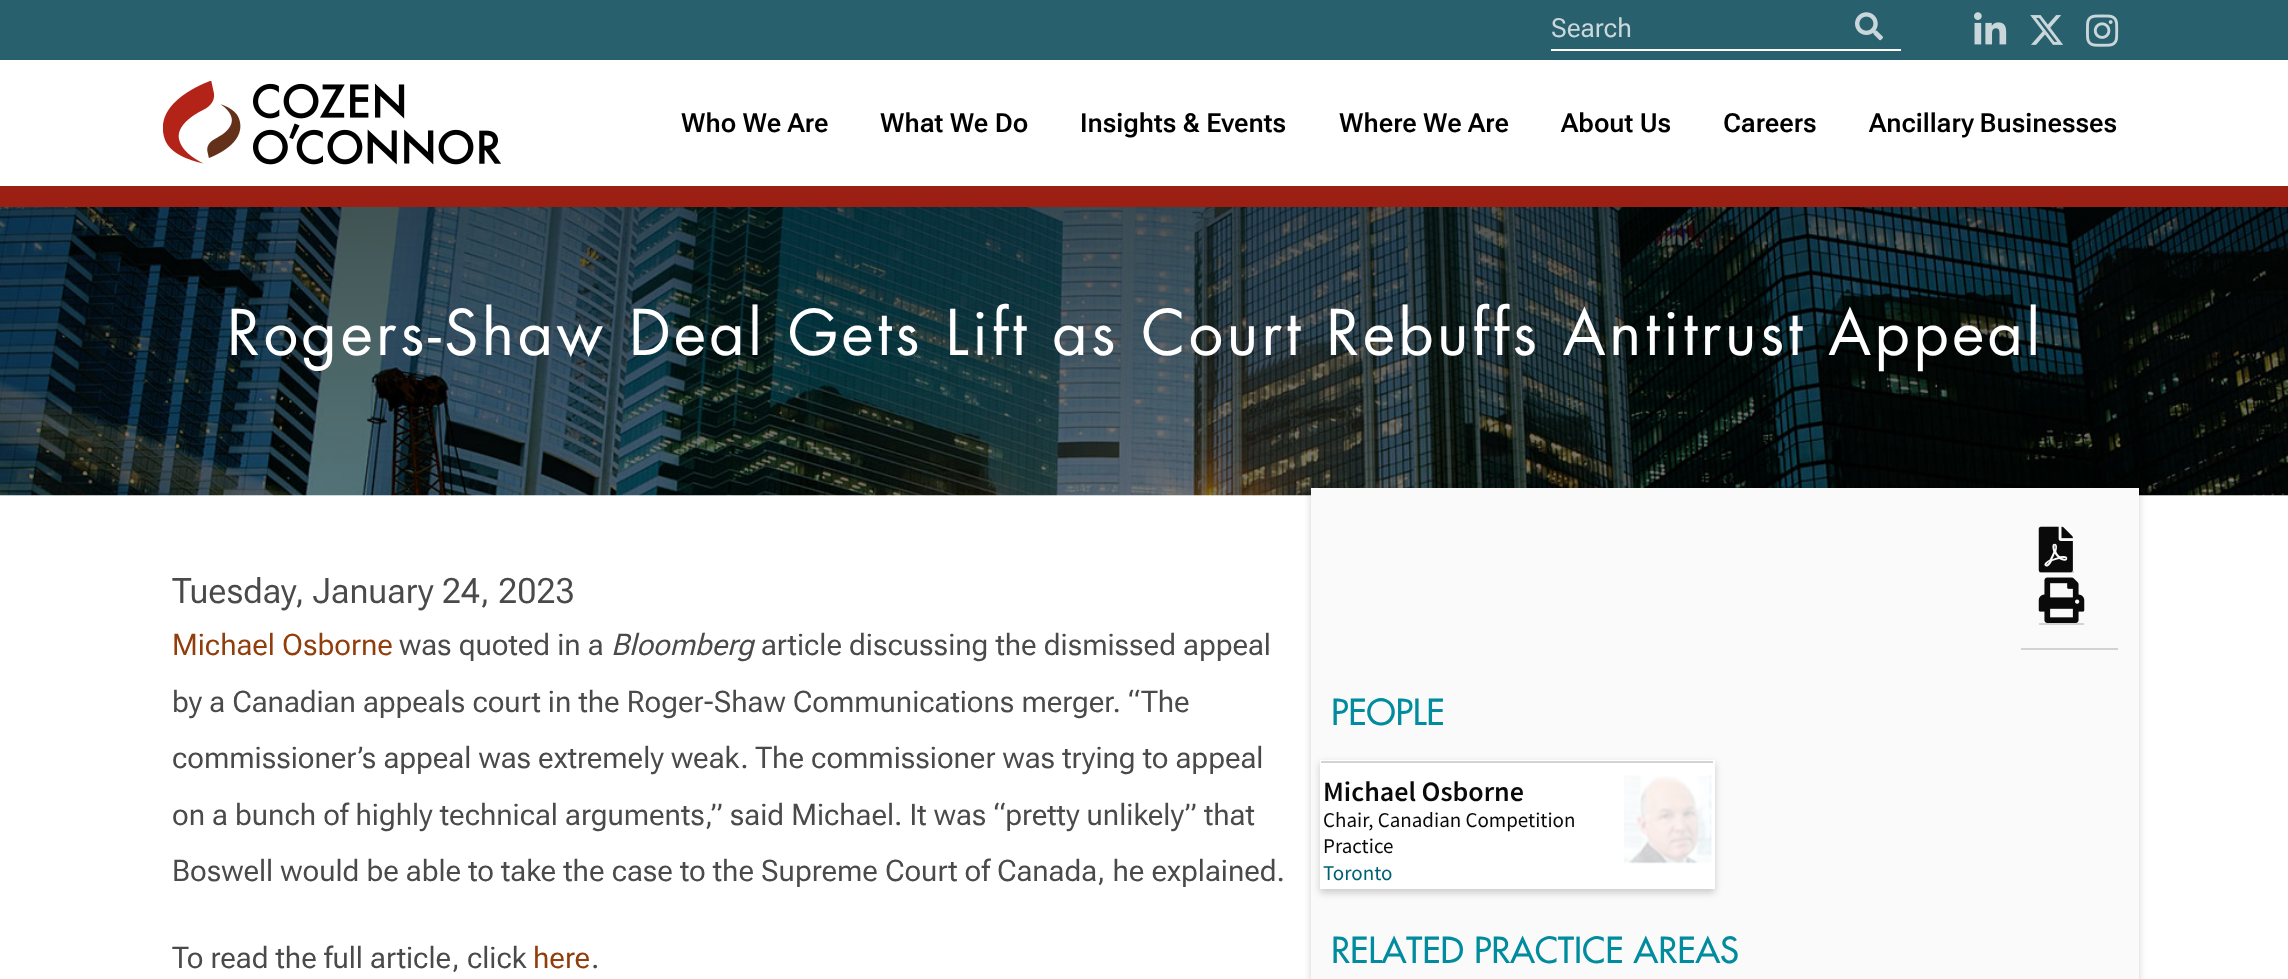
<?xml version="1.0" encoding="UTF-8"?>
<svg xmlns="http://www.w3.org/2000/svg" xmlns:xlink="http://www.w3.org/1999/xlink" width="2288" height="979">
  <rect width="100%" height="100%" fill="#ffffff" />
  <rect y="186" width="2288" height="21" fill="#9c1f14" />
  <rect width="2288" height="60" fill="#29606e" />
  <rect x="1551" y="49" width="350" height="2" fill="#ffffff" />
  <image x="1855" y="12" width="28" height="29" xlink:href="image1.png" />
  <image x="1974" y="12" width="33" height="33" xlink:href="image2.png" />
  <image x="2030" y="15" width="33" height="30" xlink:href="image3.png" />
  <image x="2086" y="14" width="33" height="33" xlink:href="image4.png" />
  <image x="163" y="81" width="338" height="84" xlink:href="image5.png" />
  <image x="0" y="207" width="2288" height="289" xlink:href="image6.png" />
  <rect x="1311" y="492" width="828" height="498" fill="#000000" fill-opacity="0.18" filter="blur(3.5px)" />
  <rect x="1311" y="488" width="828" height="491" fill="#fafafa" />
  <rect x="2039" y="571" width="35" height="2" fill="#d3d3d3" />
  <image x="2038" y="526" width="35" height="47" xlink:href="image7.png" />
  <rect x="2039" y="623" width="45" height="2" fill="#d3d3d3" />
  <image x="2038" y="577" width="47" height="46" xlink:href="image8.png" />
  <rect x="2021" y="648" width="97" height="2" fill="#d3d3d3" />
  <rect x="1320" y="763" width="395" height="130" fill="#000000" fill-opacity="0.18" filter="blur(3.5px)" />
  <rect x="1320" y="760" width="395" height="129" fill="#ffffff" />
  <rect x="1321" y="761" width="392" height="2" fill="#d3d3d3" />
  <image x="1624" y="775" width="88" height="89" xlink:href="image9.png" />
  <text x="1551" y="37" style="font-family: 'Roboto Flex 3'; font-size: 26.25px; fill: #cad7db">Search</text>
  <text x="681" y="132" style="font-family: Roboto Flex; font-size: 26.25px; font-weight: 600; fill: #000000">Who We Are</text>
  <text x="880" y="132" style="font-family: Roboto Flex; font-size: 26.25px; font-weight: 600; fill: #000000">What We Do</text>
  <text x="1080" y="132" style="font-family: Roboto Flex; font-size: 26.25px; font-weight: 600; fill: #000000">Insights &amp; Events</text>
  <text x="1339" y="132" style="font-family: Roboto Flex; font-size: 26.25px; font-weight: 600; fill: #000000">Where We Are</text>
  <text x="1561" y="132" style="font-family: Roboto Flex; font-size: 26.25px; font-weight: 600; fill: #000000">About Us</text>
  <text x="1723" y="132" style="font-family: Roboto Flex; font-size: 26.25px; font-weight: 600; fill: #000000">Careers</text>
  <text x="1869" y="132" word-spacing="-1" style="font-family: Roboto Flex; font-size: 26.25px; font-weight: 600; fill: #000000">Ancillary Businesses</text>
  <text x="227" y="355" style="font-family: Futura; font-size: 61.25px; letter-spacing: 3.5px; fill: #ffffff">Rogers-Shaw Deal Gets Lift as Court Rebuffs Antitrust Appeal</text>
  <text x="172" y="603" style="font-family: Roboto Flex; font-size: 35px; fill: #4a4a4a">Tuesday, January 24, 2023</text>
  <text x="172" y="655" style="font-family: 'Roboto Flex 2'; font-size: 29.75px; fill: #913e0d">Michael Osborne</text>
  <text x="399" y="655" style="font-family: 'Roboto Flex 2'; font-size: 29.75px; fill: #4a4a4a">was quoted in a</text>
  <text x="611" y="655" style="font-family: Roboto Flex; font-size: 29.75px; font-style: italic; fill: #4a4a4a">Bloomberg</text>
  <text x="761" y="655" style="font-family: 'Roboto Flex 2'; font-size: 29.75px; fill: #4a4a4a">article discussing the dismissed appeal</text>
  <text x="172" y="712" style="font-family: 'Roboto Flex 2'; font-size: 29.75px; fill: #4a4a4a">by a Canadian appeals court in the Roger-Shaw Communications merger. “The</text>
  <text x="172" y="768" style="font-family: 'Roboto Flex 2'; font-size: 29.75px; fill: #4a4a4a">commissioner’s appeal was extremely weak. The commissioner was trying to appeal</text>
  <text x="172" y="825" style="font-family: 'Roboto Flex 2'; font-size: 29.75px; fill: #4a4a4a">on a bunch of highly technical arguments,” said Michael. It was “pretty unlikely” that</text>
  <text x="172" y="881" style="font-family: 'Roboto Flex 2'; font-size: 29.75px; fill: #4a4a4a">Boswell would be able to take the case to the Supreme Court of Canada, he explained.</text>
  <text x="172" y="968" style="font-family: 'Roboto Flex 2'; font-size: 29.75px; fill: #4a4a4a">To read the full article, click</text>
  <text x="533" y="968" style="font-family: 'Roboto Flex 2'; font-size: 29.75px; fill: #913e0d">here</text>
  <text x="591" y="968" style="font-family: 'Roboto Flex 2'; font-size: 29.75px; fill: #4a4a4a">.</text>
  <text x="1331" y="725" style="font-family: 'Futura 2'; font-size: 35px; fill: #008c9e">PEOPLE</text>
  <text x="1323" y="801" style="font-family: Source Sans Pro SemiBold; font-size: 28px; font-weight: 600; fill: #0a0a0a">Michael Osborne</text>
  <text x="1323" y="827" style="font-family: Source Sans Pro; font-size: 21px; fill: #0a0a0a">Chair, Canadian Competition</text>
  <text x="1323" y="853" style="font-family: Source Sans Pro; font-size: 21px; fill: #0a0a0a">Practice</text>
  <text x="1323" y="880" style="font-family: Source Sans Pro; font-size: 21px; fill: #006270">Toronto</text>
  <text x="1331" y="963" style="font-family: 'Futura 2'; font-size: 35px; fill: #008c9e">RELATED PRACTICE AREAS</text>
</svg>
